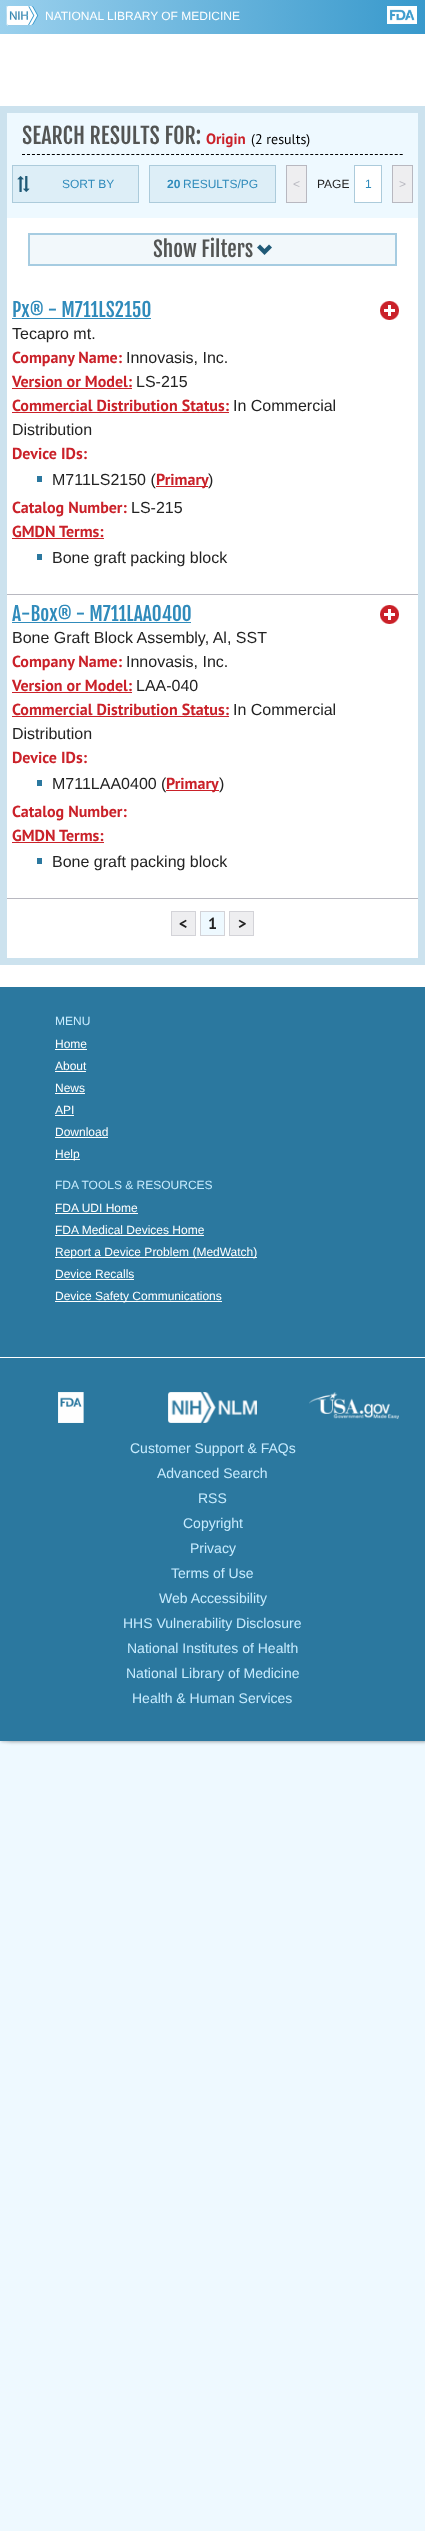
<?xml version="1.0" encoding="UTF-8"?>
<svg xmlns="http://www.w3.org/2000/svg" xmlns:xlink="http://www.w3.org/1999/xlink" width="425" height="2531">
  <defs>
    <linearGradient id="g1" gradientUnits="userSpaceOnUse" x1="0" y1="15" x2="425" y2="14"><stop offset="0" stop-color="#9ad0ed" /><stop offset="1" stop-color="#3899cc" /></linearGradient>
  </defs>
  <rect width="100%" height="100%" fill="#eef9ff" />
  <rect x="1" y="1" width="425" height="1741" fill="#000000" fill-opacity="0.2" filter="blur(1.5px)" />
  <rect x="8" width="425" height="1741" fill="#000000" fill-opacity="0.2" filter="blur(2.5px)" />
  <rect y="34" width="425" height="953" fill="#ffffff" />
  <rect width="425" height="34" fill="url(#g1)" />
  <image x="6" y="6" width="33" height="20" xlink:href="image1.png" />
  <image x="387" y="6" width="30" height="18" xlink:href="image2.png" />
  <rect x="3.5" y="109.5" width="418" height="852" fill="none" stroke="#cce2ee" stroke-width="7" />
  <rect x="7" y="113" width="411" height="105" fill="#eef9ff" />
  <path d="M 22 154.5 h 381" fill="none" stroke="#000000" stroke-dasharray="3 1.97" />
  <rect x="13" y="166" width="125" height="36" fill="#ddeef7" />
  <image x="17" y="176" width="13" height="16" xlink:href="image3.png" />
  <rect x="12.5" y="165.5" width="126" height="37" fill="none" stroke="#accbdb" />
  <rect x="149.5" y="165.5" width="126" height="37" fill="#ddeef7" stroke="#accbdb" />
  <rect x="286.5" y="165.5" width="20" height="37" fill="#eeeef0" stroke="#b8b8c0" />
  <rect x="354.5" y="165.5" width="27" height="37" fill="#ffffff" stroke="#accbdb" />
  <rect x="392.5" y="165.5" width="20" height="37" fill="#eeeef0" stroke="#b8b8c0" />
  <rect x="29" y="234" width="367" height="31" fill="#f2f8fb" stroke="#a6cce1" stroke-width="2" />
  <image x="257" y="244" width="15" height="11" xlink:href="image4.png" />
  <rect x="7" y="594" width="411" height="1" fill="#b8b8c0" />
  <rect x="12" y="318" width="139" height="1" fill="#308bbb" />
  <image x="380" y="301" width="19" height="19" xlink:href="image5.png" />
  <rect x="12" y="388" width="120" height="1" fill="#ca2129" />
  <rect x="12" y="412" width="217" height="1" fill="#ca2129" />
  <rect x="37" y="476" width="5" height="6" fill="#2b789f" />
  <rect x="156" y="486" width="52" height="1" fill="#ca2129" />
  <rect x="12" y="538" width="92" height="1" fill="#ca2129" />
  <rect x="37" y="554" width="5" height="6" fill="#2b789f" />
  <rect x="7" y="898" width="411" height="1" fill="#b8b8c0" />
  <rect x="12" y="622" width="179" height="1" fill="#308bbb" />
  <image x="380" y="605" width="19" height="19" xlink:href="image5.png" />
  <rect x="12" y="692" width="120" height="1" fill="#ca2129" />
  <rect x="12" y="716" width="217" height="1" fill="#ca2129" />
  <rect x="37" y="780" width="5" height="6" fill="#2b789f" />
  <rect x="12" y="842" width="92" height="1" fill="#ca2129" />
  <rect x="37" y="858" width="5" height="6" fill="#2b789f" />
  <rect x="171.5" y="911.5" width="24" height="24" fill="#eeeef0" stroke="#d3d3d8" />
  <rect x="200.5" y="911.5" width="24" height="24" fill="#eef9ff" stroke="#d3d3d8" />
  <rect x="229.5" y="911.5" width="24" height="24" fill="#eeeef0" stroke="#d3d3d8" />
  <rect y="987" width="425" height="370" fill="#2b789f" />
  <rect y="1357" width="425" height="1" fill="#ffffff" />
  <rect x="55" y="1049" width="32" height="1" fill="#ffffff" />
  <rect x="55" y="1071" width="31" height="1" fill="#ffffff" />
  <rect x="55" y="1093" width="30" height="1" fill="#ffffff" />
  <rect x="55" y="1115" width="19" height="1" fill="#ffffff" />
  <rect x="55" y="1137" width="53" height="1" fill="#ffffff" />
  <rect x="55" y="1159" width="25" height="1" fill="#ffffff" />
  <rect x="55" y="1213" width="83" height="1" fill="#ffffff" />
  <rect x="55" y="1235" width="149" height="1" fill="#ffffff" />
  <rect x="55" y="1257" width="202" height="1" fill="#ffffff" />
  <rect x="55" y="1279" width="79" height="1" fill="#ffffff" />
  <rect x="55" y="1301" width="167" height="1" fill="#ffffff" />
  <rect y="1358" width="425" height="383" fill="#2b789f" />
  <image x="58" y="1392" width="26" height="31" xlink:href="image6.png" />
  <image x="168" y="1392" width="89" height="31" xlink:href="image7.png" />
  <image x="309" y="1392" width="90" height="27" xlink:href="image8.png" />
  <text x="45" y="20" style="font-family: Liberation Sans; font-size: 12px; fill: #ffffff">NATIONAL LIBRARY OF MEDICINE</text>
  <text x="22" y="144" style="font-family: Fjalla One; font-size: 22px; fill: #535554">SEARCH RESULTS FOR:</text>
  <text x="206" y="144" style="font-family: PT Sans; font-size: 15px; font-weight: bold; fill: #ca2129">Origin</text>
  <text x="251" y="144" style="font-family: PT Sans; font-size: 14px; fill: #000000">(2 results)</text>
  <text x="62" y="188" style="font-family: Liberation Sans; font-size: 12px; fill: #308bbb">SORT BY</text>
  <text x="167" y="188" style="font-family: Liberation Sans; font-size: 12px; font-weight: bold; fill: #308bbb">20</text>
  <text x="183" y="188" style="font-family: Liberation Sans; font-size: 12px; fill: #308bbb">RESULTS/PG</text>
  <text x="293" y="188" style="font-family: Liberation Sans; font-size: 12px; fill: #b8b8c0">&lt;</text>
  <text x="317" y="188" style="font-family: Liberation Sans; font-size: 12px; fill: #222222">PAGE</text>
  <text x="365" y="188" style="font-family: Liberation Sans; font-size: 12px; fill: #308bbb">1</text>
  <text x="399" y="188" style="font-family: Liberation Sans; font-size: 12px; fill: #b8b8c0">&gt;</text>
  <text x="153" y="257" style="font-family: Fjalla One; font-size: 21px; fill: #535554">Show Filters</text>
  <text x="12" y="317" style="font-family: Fjalla One; font-size: 19.25px; fill: #308bbb">Px® - M711LS2150</text>
  <text x="12" y="339" style="font-family: Liberation Sans; font-size: 16px; fill: #222222">Tecapro mt.</text>
  <text x="12" y="363" style="font-family: PT Sans; font-size: 16px; font-weight: bold; fill: #ca2129">Company Name:</text>
  <text x="126" y="363" style="font-family: Liberation Sans; font-size: 16px; fill: #222222">Innovasis, Inc.</text>
  <text x="12" y="387" style="font-family: PT Sans; font-size: 16px; font-weight: bold; fill: #ca2129">Version or Model:</text>
  <text x="136" y="387" style="font-family: Liberation Sans; font-size: 16px; fill: #222222">LS-215</text>
  <text x="12" y="411" style="font-family: PT Sans; font-size: 16px; font-weight: bold; fill: #ca2129">Commercial Distribution Status:</text>
  <text x="233" y="411" style="font-family: Liberation Sans; font-size: 16px; fill: #222222">In Commercial</text>
  <text x="12" y="435" style="font-family: Liberation Sans; font-size: 16px; fill: #222222">Distribution</text>
  <text x="12" y="459" style="font-family: PT Sans; font-size: 16px; font-weight: bold; fill: #ca2129">Device IDs:</text>
  <text x="52" y="485" style="font-family: Liberation Sans; font-size: 16px; fill: #222222">M711LS2150 (</text>
  <text x="156" y="485" style="font-family: PT Sans; font-size: 16px; font-weight: bold; fill: #ca2129">Primary</text>
  <text x="208" y="485" style="font-family: Liberation Sans; font-size: 16px; fill: #222222">)</text>
  <text x="12" y="513" style="font-family: PT Sans; font-size: 16px; font-weight: bold; fill: #ca2129">Catalog Number:</text>
  <text x="131" y="513" style="font-family: Liberation Sans; font-size: 16px; fill: #222222">LS-215</text>
  <text x="12" y="537" style="font-family: PT Sans; font-size: 16px; font-weight: bold; fill: #ca2129">GMDN Terms:</text>
  <text x="52" y="563" style="font-family: Liberation Sans; font-size: 16px; fill: #222222">Bone graft packing block</text>
  <text x="12" y="621" style="font-family: Fjalla One; font-size: 19.25px; fill: #308bbb">A-Box® - M711LAA0400</text>
  <text x="12" y="643" style="font-family: Liberation Sans; font-size: 16px; fill: #222222">Bone Graft Block Assembly, Al, SST</text>
  <text x="12" y="667" style="font-family: PT Sans; font-size: 16px; font-weight: bold; fill: #ca2129">Company Name:</text>
  <text x="126" y="667" style="font-family: Liberation Sans; font-size: 16px; fill: #222222">Innovasis, Inc.</text>
  <text x="12" y="691" style="font-family: PT Sans; font-size: 16px; font-weight: bold; fill: #ca2129">Version or Model:</text>
  <text x="136" y="691" style="font-family: Liberation Sans; font-size: 16px; fill: #222222">LAA-040</text>
  <text x="12" y="715" style="font-family: PT Sans; font-size: 16px; font-weight: bold; fill: #ca2129">Commercial Distribution Status:</text>
  <text x="233" y="715" style="font-family: Liberation Sans; font-size: 16px; fill: #222222">In Commercial</text>
  <text x="12" y="739" style="font-family: Liberation Sans; font-size: 16px; fill: #222222">Distribution</text>
  <text x="12" y="763" style="font-family: PT Sans; font-size: 16px; font-weight: bold; fill: #ca2129">Device IDs:</text>
  <text x="52" y="789" style="font-family: Liberation Sans; font-size: 16px; fill: #222222">M711LAA0400 (</text>
  <rect x="166" y="790" width="53" height="1" fill="#ca2129" />
  <text x="166" y="789" style="font-family: PT Sans; font-size: 16px; font-weight: bold; fill: #ca2129">Primary</text>
  <text x="219" y="789" style="font-family: Liberation Sans; font-size: 16px; fill: #222222">)</text>
  <text x="12" y="817" style="font-family: PT Sans; font-size: 16px; font-weight: bold; fill: #ca2129">Catalog Number:</text>
  <text x="12" y="841" style="font-family: PT Sans; font-size: 16px; font-weight: bold; fill: #ca2129">GMDN Terms:</text>
  <text x="52" y="867" style="font-family: Liberation Sans; font-size: 16px; fill: #222222">Bone graft packing block</text>
  <text x="179" y="929" style="font-family: PT Sans; font-size: 16px; font-weight: bold; fill: #222222">&lt;</text>
  <text x="208" y="929" style="font-family: PT Sans; font-size: 16px; font-weight: bold; fill: #222222">1</text>
  <text x="238" y="929" style="font-family: PT Sans; font-size: 16px; font-weight: bold; fill: #222222">&gt;</text>
  <text x="55" y="1025" style="font-family: Liberation Sans; font-size: 12px; fill: #c7ecff">MENU</text>
  <text x="55" y="1048" style="font-family: Liberation Sans; font-size: 12px; fill: #ffffff">Home</text>
  <text x="55" y="1070" style="font-family: Liberation Sans; font-size: 12px; fill: #ffffff">About</text>
  <text x="55" y="1092" style="font-family: Liberation Sans; font-size: 12px; fill: #ffffff">News</text>
  <text x="55" y="1114" style="font-family: Liberation Sans; font-size: 12px; fill: #ffffff">API</text>
  <text x="55" y="1136" style="font-family: Liberation Sans; font-size: 12px; fill: #ffffff">Download</text>
  <text x="55" y="1158" style="font-family: Liberation Sans; font-size: 12px; fill: #ffffff">Help</text>
  <text x="55" y="1189" style="font-family: Liberation Sans; font-size: 12px; fill: #c7ecff">FDA TOOLS &amp; RESOURCES</text>
  <text x="55" y="1212" style="font-family: Liberation Sans; font-size: 12px; fill: #ffffff">FDA UDI Home</text>
  <text x="55" y="1234" style="font-family: Liberation Sans; font-size: 12px; fill: #ffffff">FDA Medical Devices Home</text>
  <text x="55" y="1256" style="font-family: Liberation Sans; font-size: 12px; fill: #ffffff">Report a Device Problem (MedWatch)</text>
  <text x="55" y="1278" style="font-family: Liberation Sans; font-size: 12px; fill: #ffffff">Device Recalls</text>
  <text x="55" y="1300" style="font-family: Liberation Sans; font-size: 12px; fill: #ffffff">Device Safety Communications</text>
  <text x="130" y="1453" style="font-family: Liberation Sans; font-size: 14px; fill: #c7ecff">Customer Support &amp; FAQs</text>
  <text x="157" y="1478" style="font-family: Liberation Sans; font-size: 14px; fill: #c7ecff">Advanced Search</text>
  <text x="198" y="1503" style="font-family: Liberation Sans; font-size: 14px; fill: #c7ecff">RSS</text>
  <text x="183" y="1528" style="font-family: Liberation Sans; font-size: 14px; fill: #c7ecff">Copyright</text>
  <text x="190" y="1553" style="font-family: Liberation Sans; font-size: 14px; fill: #c7ecff">Privacy</text>
  <text x="171" y="1578" style="font-family: Liberation Sans; font-size: 14px; fill: #c7ecff">Terms of Use</text>
  <text x="159" y="1603" style="font-family: Liberation Sans; font-size: 14px; fill: #c7ecff">Web Accessibility</text>
  <text x="123" y="1628" style="font-family: Liberation Sans; font-size: 14px; fill: #c7ecff">HHS Vulnerability Disclosure</text>
  <text x="127" y="1653" style="font-family: Liberation Sans; font-size: 14px; fill: #c7ecff">National Institutes of Health</text>
  <text x="126" y="1678" style="font-family: Liberation Sans; font-size: 14px; fill: #c7ecff">National Library of Medicine</text>
  <text x="132" y="1703" style="font-family: Liberation Sans; font-size: 14px; fill: #c7ecff">Health &amp; Human Services</text>
</svg>
